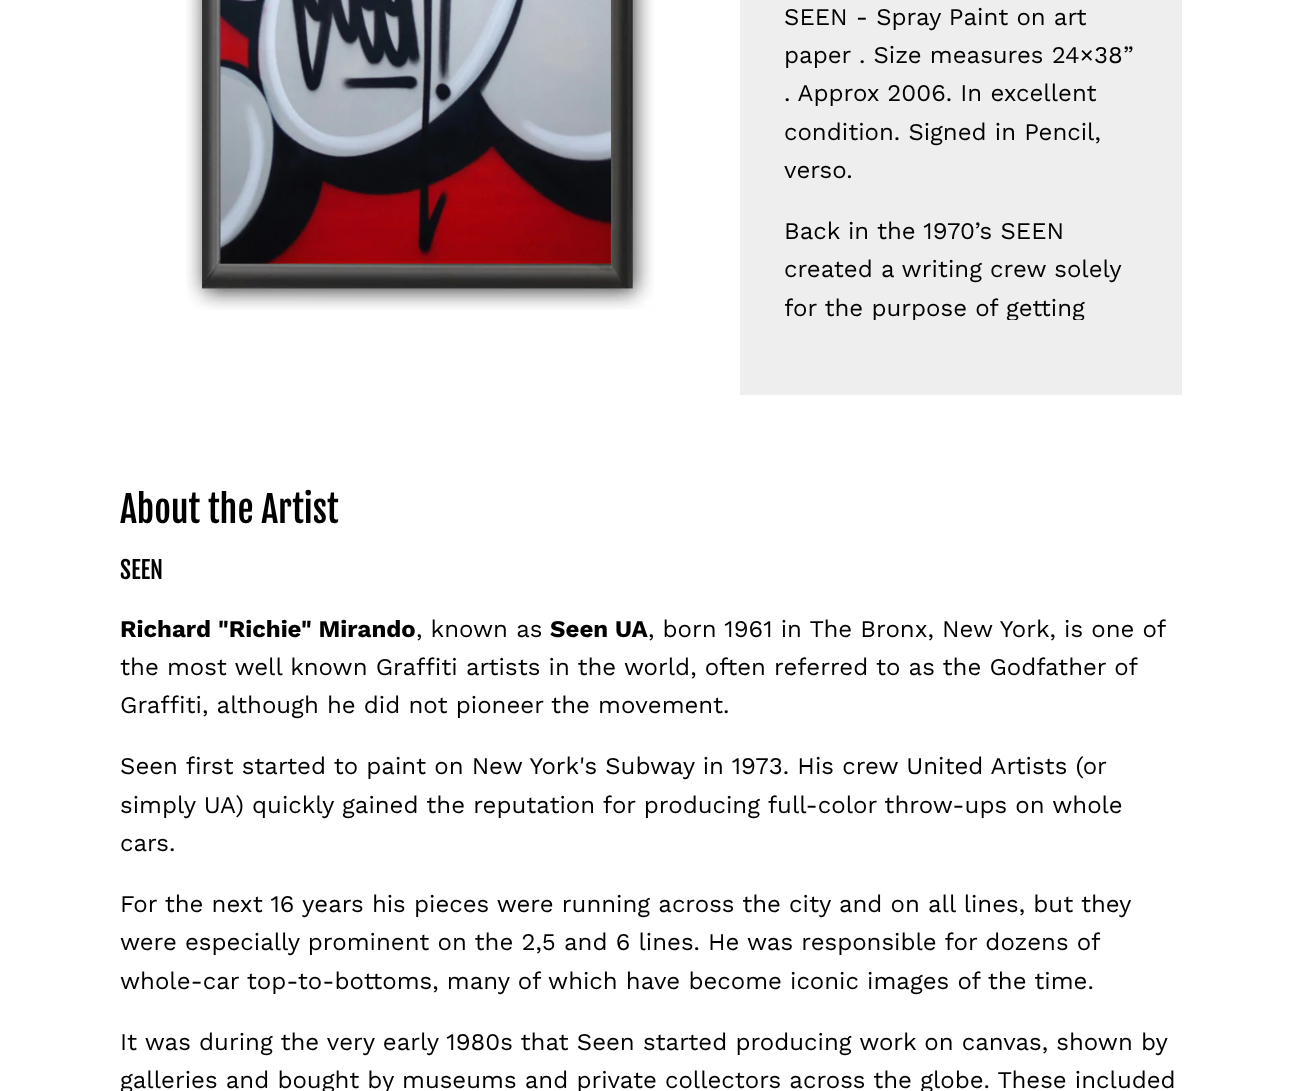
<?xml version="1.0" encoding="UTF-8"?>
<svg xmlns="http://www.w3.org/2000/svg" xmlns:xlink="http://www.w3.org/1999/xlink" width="1302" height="1091">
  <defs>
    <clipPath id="clip1"><rect x="785" width="352" height="320" /></clipPath>
  </defs>
  <rect width="100%" height="100%" fill="#ffffff" />
  <image x="186" y="0" width="468" height="310" xlink:href="image1.png" />
  <rect x="740" width="442" height="395" fill="#eeeeee" />
  <text x="784" y="25" style="font-family: Work Sans; font-size: 24px; fill: #000000">SEEN - Spray Paint on art</text>
  <text x="784" y="63" style="font-family: Work Sans; font-size: 24px; fill: #000000">paper . Size measures 24×38”</text>
  <text x="784" y="101" style="font-family: Work Sans; font-size: 24px; fill: #000000">. Approx 2006. In excellent</text>
  <text x="784" y="140" style="font-family: Work Sans; font-size: 24px; fill: #000000">condition. Signed in Pencil,</text>
  <text x="784" y="178" style="font-family: Work Sans; font-size: 24px; fill: #000000">verso.</text>
  <text x="784" y="239" style="font-family: Work Sans; font-size: 24px; fill: #000000">Back in the 1970’s SEEN</text>
  <text x="784" y="277" style="font-family: Work Sans; font-size: 24px; fill: #000000">created a writing crew solely</text>
  <g clip-path="url(#clip1)">
    <text x="784" y="316" style="font-family: Work Sans; font-size: 24px; fill: #000000">for the purpose of getting</text>
  </g>
  <text x="120" y="523" style="font-family: Fjalla One; font-size: 36px; fill: #000000">About the Artist</text>
  <text x="120" y="579" style="font-family: Fjalla One; font-size: 24px; fill: #000000">SEEN</text>
  <text x="120" y="637" style="font-family: Work Sans; font-size: 24px; font-weight: bold; fill: #000000">Richard "Richie" Mirando</text>
  <text x="416" y="637" style="font-family: Work Sans; font-size: 24px; fill: #000000">, known as</text>
  <text x="550" y="637" style="font-family: Work Sans; font-size: 24px; font-weight: bold; fill: #000000">Seen UA</text>
  <text x="648" y="637" style="font-family: Work Sans; font-size: 24px; fill: #000000">, born 1961 in The Bronx, New York, is one of</text>
  <text x="120" y="675" style="font-family: Work Sans; font-size: 24px; fill: #000000">the most well known Graffiti artists in the world, often referred to as the Godfather of</text>
  <text x="120" y="713" style="font-family: Work Sans; font-size: 24px; fill: #000000">Graffiti, although he did not pioneer the movement.</text>
  <text x="120" y="774" style="font-family: Work Sans; font-size: 24px; fill: #000000">Seen first started to paint on New York's Subway in 1973. His crew United Artists (or</text>
  <text x="120" y="813" style="font-family: Work Sans; font-size: 24px; fill: #000000">simply UA) quickly gained the reputation for producing full-color throw-ups on whole</text>
  <text x="120" y="851" style="font-family: Work Sans; font-size: 24px; fill: #000000">cars.</text>
  <text x="120" y="912" style="font-family: Work Sans; font-size: 24px; fill: #000000">For the next 16 years his pieces were running across the city and on all lines, but they</text>
  <text x="120" y="950" style="font-family: Work Sans; font-size: 24px; fill: #000000">were especially prominent on the 2,5 and 6 lines. He was responsible for dozens of</text>
  <text x="120" y="989" style="font-family: Work Sans; font-size: 24px; fill: #000000">whole-car top-to-bottoms, many of which have become iconic images of the time.</text>
  <text x="120" y="1050" style="font-family: Work Sans; font-size: 24px; fill: #000000">It was during the very early 1980s that Seen started producing work on canvas, shown by</text>
  <text x="120" y="1088" style="font-family: Work Sans; font-size: 24px; fill: #000000">galleries and bought by museums and private collectors across the globe. These included</text>
</svg>
